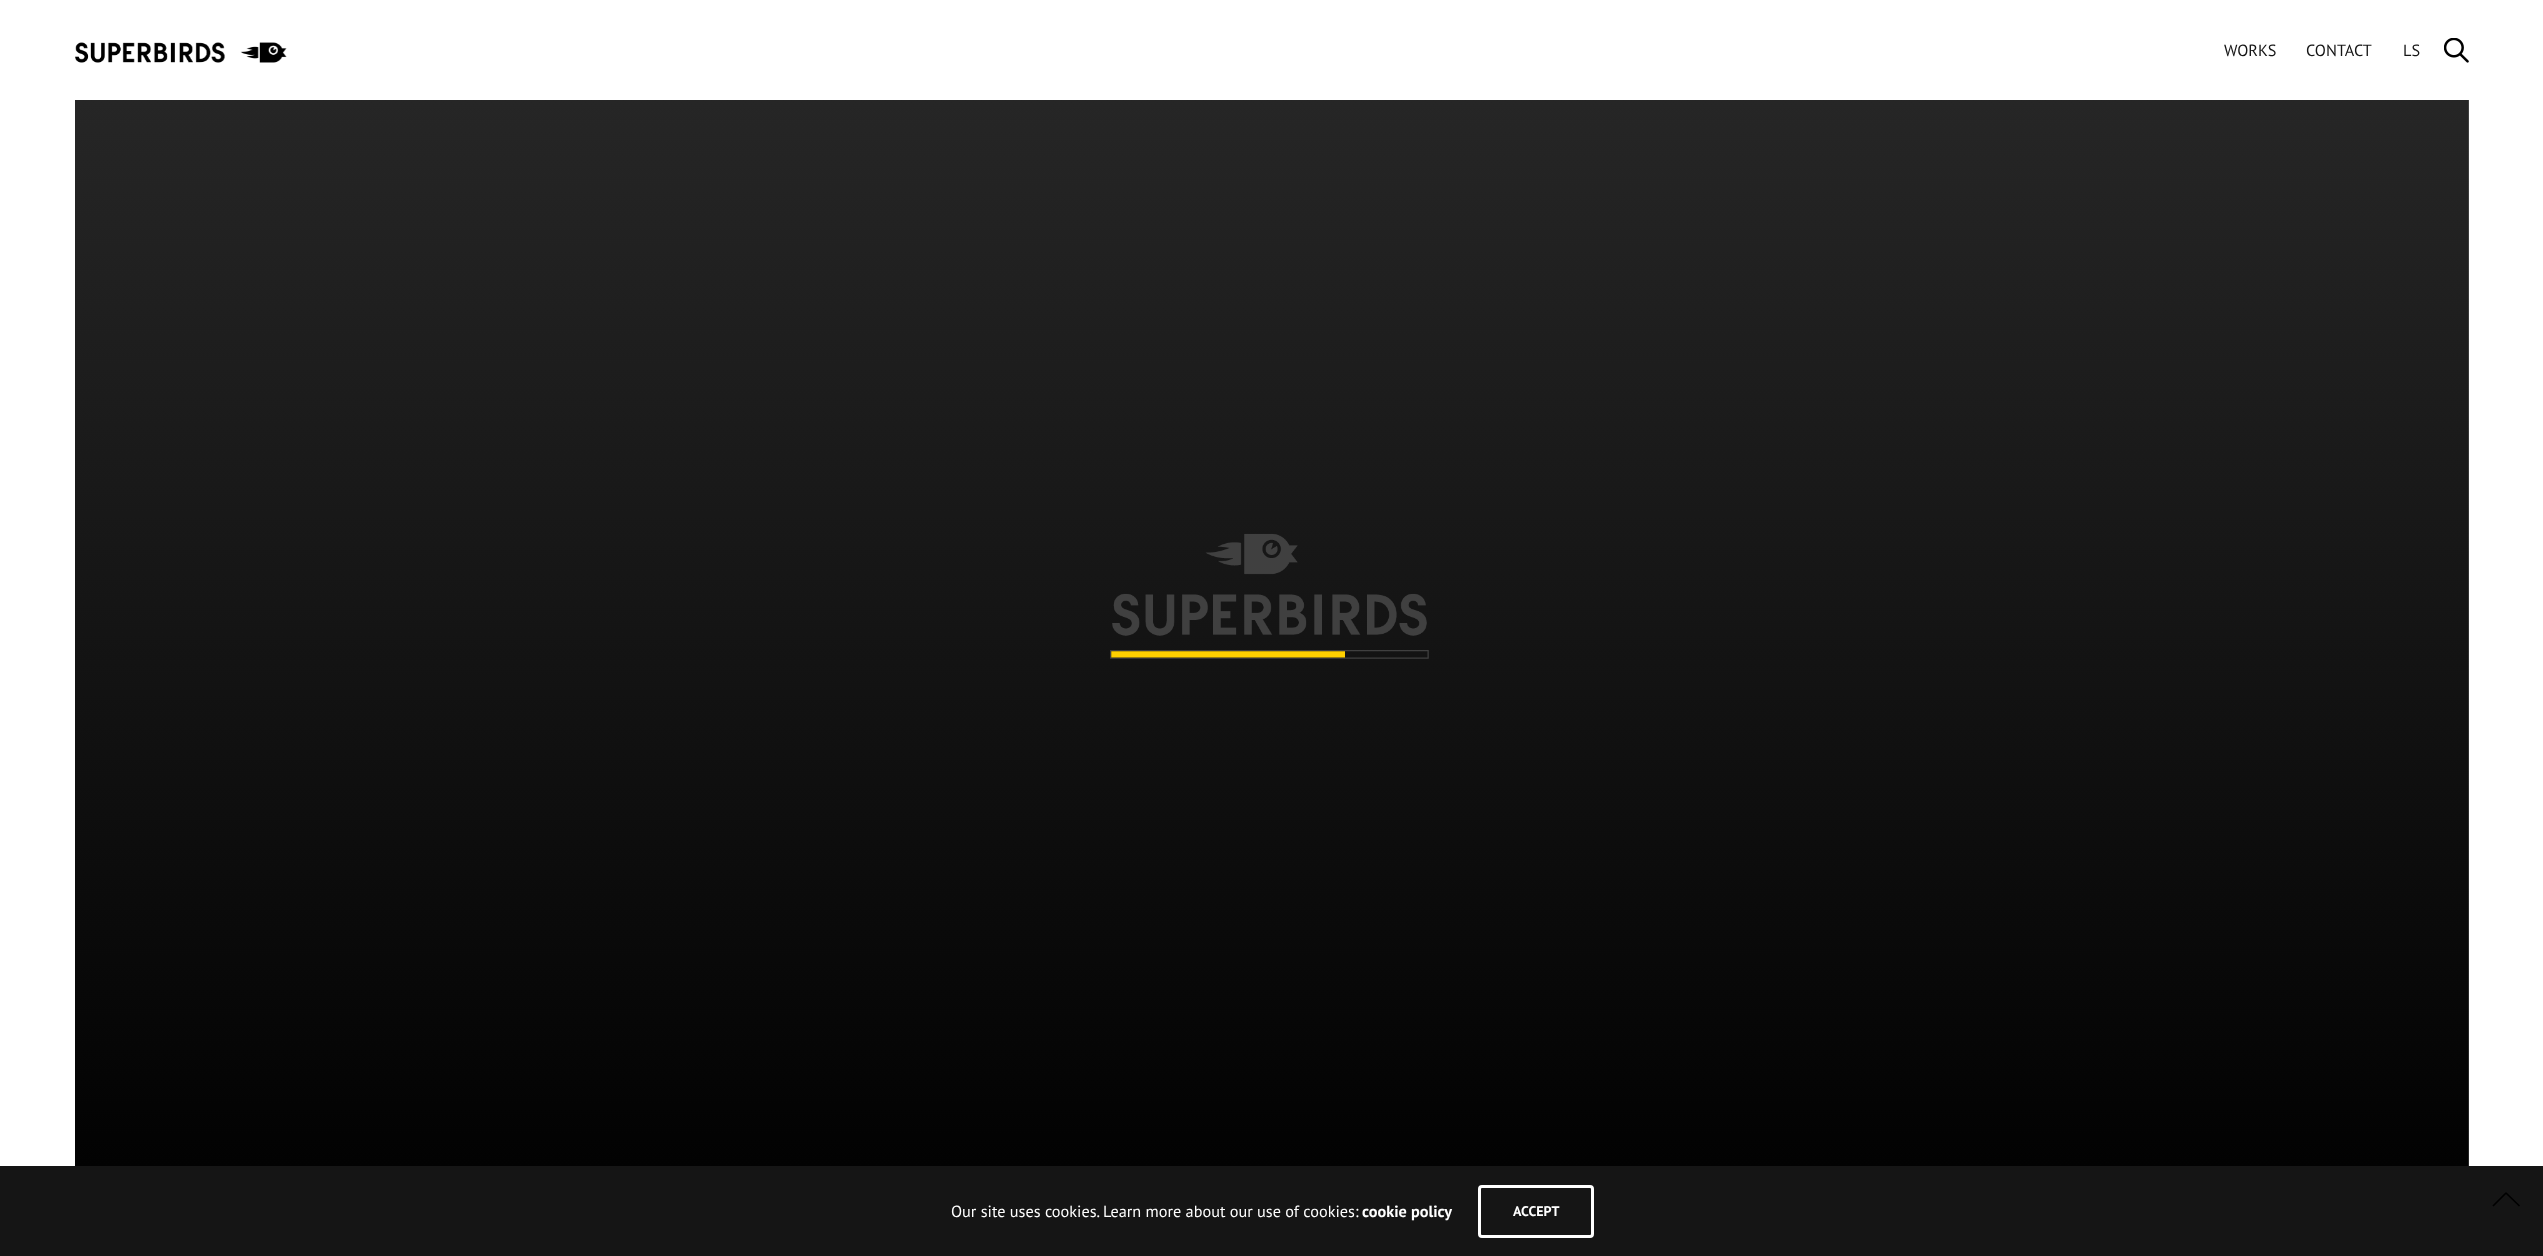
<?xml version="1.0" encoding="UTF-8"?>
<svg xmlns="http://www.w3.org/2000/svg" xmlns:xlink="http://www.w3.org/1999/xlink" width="2543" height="1256">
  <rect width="100%" height="100%" fill="#ffffff" />
  <image x="75" y="42" width="212" height="21" xlink:href="image1.png" />
  <image x="2444" y="38" width="25" height="25" xlink:href="image2.png" />
  <image x="75" y="100" width="2394" height="1066" xlink:href="image3.png" />
  <rect y="1166" width="2543" height="90" fill="#151515" />
  <path d="M 2493 1206 l 13 -13 l 13.5 13" fill="none" stroke="#000000" stroke-width="1.6" stroke-linejoin="bevel" />
  <rect x="1479.5" y="1186.5" width="113" height="50" rx="2.5" fill="none" stroke="#ffffff" stroke-width="3" />
  <text x="2224" y="56" style="font-family: PT Sans; font-size: 16.25px; fill: #151515">WORKS</text>
  <text x="2306" y="56" style="font-family: PT Sans; font-size: 16.25px; fill: #151515">CONTACT</text>
  <text x="2403" y="56" style="font-family: PT Sans; font-size: 16.25px; fill: #151515">LS</text>
  <text x="951" y="1217" style="font-family: PT Sans; font-size: 16.25px; fill: #ffffff">Our site uses cookies. Learn more about our use of cookies:</text>
  <text x="1362" y="1217" style="font-family: PT Sans; font-size: 16.25px; font-weight: bold; fill: #ffffff">cookie policy</text>
  <text x="1513" y="1216" style="font-family: PT Sans; font-size: 14px; font-weight: bold; fill: #ffffff">ACCEPT</text>
</svg>
